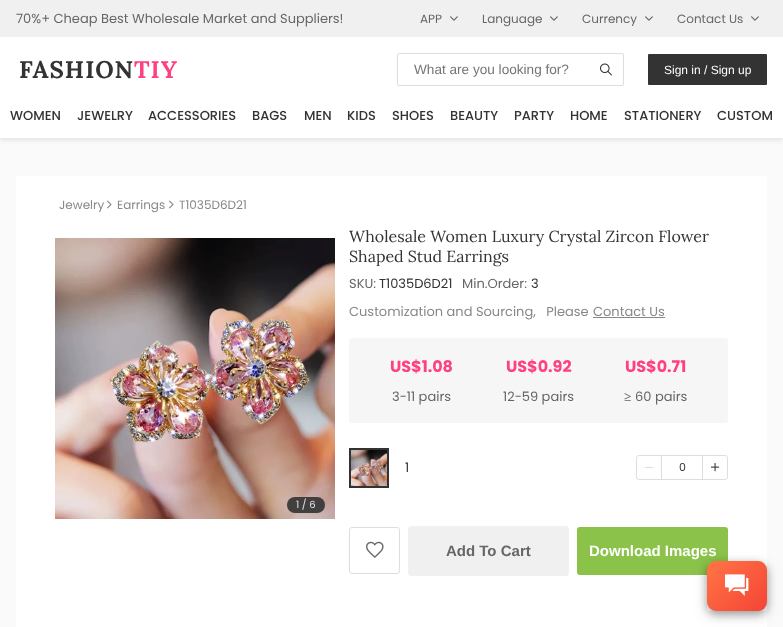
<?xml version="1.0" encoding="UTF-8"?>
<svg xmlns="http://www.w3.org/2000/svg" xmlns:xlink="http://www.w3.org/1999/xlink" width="783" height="627">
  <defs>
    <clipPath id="clip1"><path d="M 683 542 h 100 v 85 h -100 z m 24 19 h 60 v 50 h -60 z" clip-rule="evenodd" /></clipPath>
    <linearGradient id="g1" gradientUnits="userSpaceOnUse" x1="710" y1="559" x2="765" y2="614"><stop offset="0.1" stop-color="#ff7043" /><stop offset="1" stop-color="#f44336" /></linearGradient>
  </defs>
  <rect width="100%" height="100%" fill="#fafafa" />
  <rect y="2" width="783" height="138" fill="#000000" fill-opacity="0.1" filter="blur(2.5px)" />
  <rect y="37" width="783" height="101" fill="#ffffff" />
  <rect width="783" height="37" fill="#f0f0f0" />
  <image x="450" y="16" width="8" height="5" xlink:href="image1.png" />
  <image x="550" y="16" width="8" height="5" xlink:href="image1.png" />
  <image x="645" y="16" width="8" height="5" xlink:href="image1.png" />
  <image x="751" y="16" width="8" height="5" xlink:href="image1.png" />
  <rect x="397.5" y="53.5" width="226" height="32" rx="1.5" fill="none" stroke="#dadfe6" />
  <image x="600" y="63" width="12" height="13" xlink:href="image2.png" />
  <rect x="648" y="54" width="119" height="31" rx="1" fill="#333333" />
  <rect x="16" y="176" width="751" height="451" fill="#ffffff" />
  <image x="107" y="200" width="5" height="9" xlink:href="image3.png" />
  <image x="169" y="200" width="5" height="9" xlink:href="image3.png" />
  <image x="55" y="238" width="280" height="281" xlink:href="image4.png" />
  <rect x="287" y="497" width="38" height="16" rx="8" fill="#333333" fill-opacity="0.9" />
  <rect x="593" y="317" width="72" height="1" fill="#888888" />
  <rect x="349" y="338" width="379" height="85" rx="3" fill="#f6f6f6" />
  <rect x="350" y="449" width="38" height="38" fill="none" stroke="#333333" stroke-width="2" />
  <image x="351" y="450" width="36" height="36" xlink:href="image5.png" />
  <rect x="636.5" y="455.5" width="91" height="24" rx="2.5" fill="none" stroke="#dadfe6" />
  <rect x="661" y="456" width="1" height="23" fill="#dadfe6" />
  <rect x="645" y="467" width="8" height="1" fill="#dadfe6" />
  <rect x="702" y="456" width="1" height="23" fill="#dadfe6" />
  <image x="711" y="463" width="9" height="9" xlink:href="image6.png" />
  <rect x="349.5" y="527.5" width="50" height="46" rx="2.5" fill="none" stroke="#dadfe6" />
  <image x="366" y="541" width="18" height="17" xlink:href="image7.png" />
  <rect x="408.5" y="526.5" width="160" height="49" rx="2.5" fill="#f0f0f0" stroke="#f1f1f1" />
  <rect x="577" y="527" width="151" height="48" rx="3" fill="#8bc34a" />
  <g clip-path="url(#clip1)">
    <rect x="707" y="566" width="60" height="50" fill="#000000" fill-opacity="0.1" filter="blur(7.5px)" />
  </g>
  <rect x="707" y="564" width="60" height="50" rx="9" fill="#000000" fill-opacity="0.24" filter="blur(4.5px)" />
  <rect x="707" y="564" width="60" height="50" rx="9" fill="#000000" fill-opacity="0.12" filter="blur(4.5px)" />
  <rect x="707" y="561" width="60" height="50" rx="9" fill="url(#g1)" />
  <image x="725" y="574" width="24" height="22" xlink:href="image8.png" />
  <text x="16" y="23" style="font-family: Poppins; font-size: 13px; fill: #666666">70%+ Cheap Best Wholesale Market and Suppliers!</text>
  <text x="420" y="23" style="font-family: Poppins; font-size: 12px; fill: #666666">APP</text>
  <text x="482" y="23" style="font-family: Poppins; font-size: 12px; fill: #666666">Language</text>
  <text x="582" y="23" style="font-family: Poppins; font-size: 12px; fill: #666666">Currency</text>
  <text x="677" y="23" style="font-family: Poppins; font-size: 12px; fill: #666666">Contact Us</text>
  <text x="19" y="78" style="font-family: Lora; font-size: 24px; font-weight: bold; letter-spacing: 1px; fill: #333333">FASHION</text>
  <text x="134" y="78" style="font-family: Lora; font-size: 24px; font-weight: bold; letter-spacing: 1px; fill: #ff4081">TIY</text>
  <text x="414" y="74" style="font-family: Liberation Sans; font-size: 13.6px; fill: #757575">What are you looking for?</text>
  <text x="664" y="74" style="font-family: Liberation Sans; font-size: 12px; fill: #ffffff">Sign in / Sign up</text>
  <text x="10" y="120" style="font-family: Poppins; font-size: 13px; font-weight: 500; fill: #333333">WOMEN</text>
  <text x="77" y="120" style="font-family: Poppins; font-size: 13px; font-weight: 500; fill: #333333">JEWELRY</text>
  <text x="148" y="120" style="font-family: Poppins; font-size: 13px; font-weight: 500; fill: #333333">ACCESSORIES</text>
  <text x="252" y="120" style="font-family: Poppins; font-size: 13px; font-weight: 500; fill: #333333">BAGS</text>
  <text x="304" y="120" style="font-family: Poppins; font-size: 13px; font-weight: 500; fill: #333333">MEN</text>
  <text x="347" y="120" style="font-family: Poppins; font-size: 13px; font-weight: 500; fill: #333333">KIDS</text>
  <text x="392" y="120" style="font-family: Poppins; font-size: 13px; font-weight: 500; fill: #333333">SHOES</text>
  <text x="450" y="120" style="font-family: Poppins; font-size: 13px; font-weight: 500; fill: #333333">BEAUTY</text>
  <text x="514" y="120" style="font-family: Poppins; font-size: 13px; font-weight: 500; fill: #333333">PARTY</text>
  <text x="570" y="120" style="font-family: Poppins; font-size: 13px; font-weight: 500; fill: #333333">HOME</text>
  <text x="624" y="120" style="font-family: Poppins; font-size: 13px; font-weight: 500; fill: #333333">STATIONERY</text>
  <text x="717" y="120" style="font-family: Poppins; font-size: 13px; font-weight: 500; fill: #333333">CUSTOM</text>
  <text x="59" y="209" style="font-family: Poppins; font-size: 12px; fill: #888888">Jewelry</text>
  <text x="117" y="209" style="font-family: Poppins; font-size: 12px; fill: #888888">Earrings</text>
  <text x="179" y="209" style="font-family: Poppins; font-size: 12px; fill: #888888">T1035D6D21</text>
  <text x="296" y="508" style="font-family: Poppins; font-size: 10px; fill: #e1e1e4">1 / 6</text>
  <text x="349" y="242" style="font-family: Lora; font-size: 16px; fill: #333333">Wholesale Women Luxury Crystal Zircon Flower</text>
  <text x="349" y="262" style="font-family: Lora; font-size: 16px; fill: #333333">Shaped Stud Earrings</text>
  <text x="349" y="288" style="font-family: Poppins; font-size: 13px; fill: #666666">SKU:</text>
  <text x="379" y="288" style="font-family: Poppins; font-size: 13px; fill: #333333">T1035D6D21</text>
  <text x="462" y="288" style="font-family: Poppins; font-size: 13px; fill: #666666">Min.Order:</text>
  <text x="531" y="288" style="font-family: Poppins; font-size: 13px; fill: #333333">3</text>
  <text x="349" y="316" style="font-family: Poppins; font-size: 13px; fill: #888888" xml:space="preserve">Customization and Sourcing,   Please</text>
  <text x="593" y="316" style="font-family: Poppins; font-size: 13px; fill: #888888">Contact Us</text>
  <text x="390" y="372" style="font-family: Poppins; font-size: 16px; font-weight: bold; fill: #ff4081">US$1.08</text>
  <text x="392" y="401" style="font-family: Poppins; font-size: 13px; fill: #666666">3-11 pairs</text>
  <text x="506" y="372" style="font-family: Poppins; font-size: 16px; font-weight: bold; fill: #ff4081">US$0.92</text>
  <text x="503" y="401" style="font-family: Poppins; font-size: 13px; fill: #666666">12-59 pairs</text>
  <text x="625" y="372" style="font-family: Poppins; font-size: 16px; font-weight: bold; fill: #ff4081">US$0.71</text>
  <text x="624" y="401" style="font-family: Open Sans; font-size: 13px; fill: #666666">≥</text>
  <text x="635" y="401" style="font-family: Poppins; font-size: 13px; fill: #666666">60 pairs</text>
  <text x="405" y="472" style="font-family: Poppins; font-size: 13px; fill: #333333">1</text>
  <text x="679" y="471" style="font-family: Poppins; font-size: 11px; fill: #333333">0</text>
  <text x="446" y="556" style="font-family: Liberation Sans; font-size: 15px; font-weight: bold; fill: #666666">Add To Cart</text>
  <text x="589" y="556" style="font-family: Liberation Sans; font-size: 15px; font-weight: bold; fill: #ffffff">Download Images</text>
</svg>
